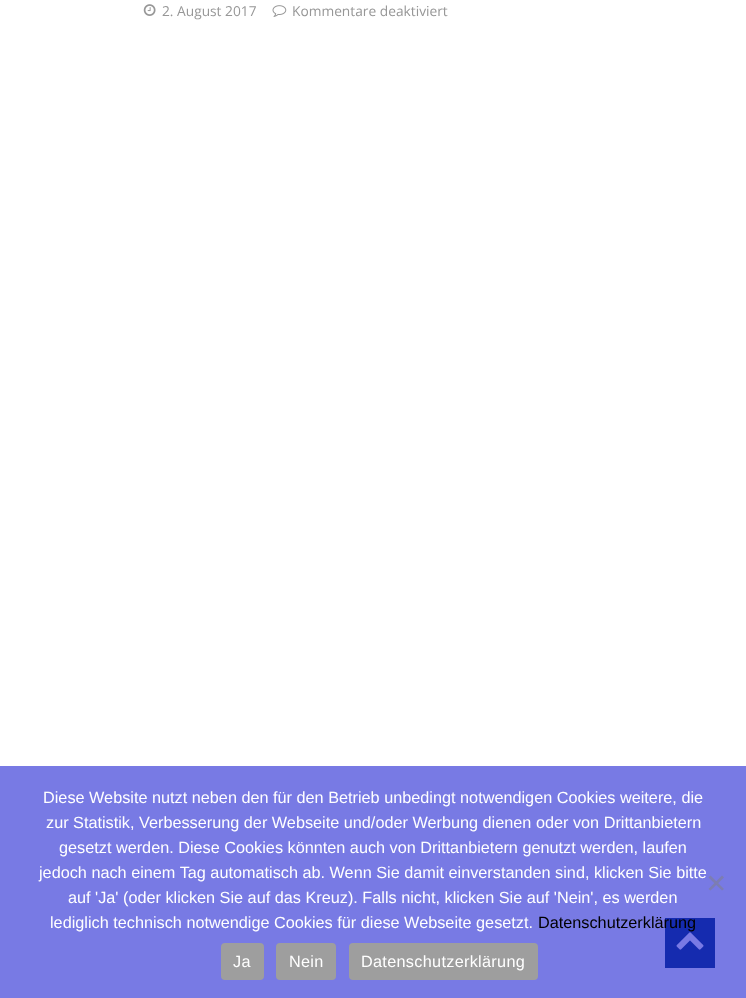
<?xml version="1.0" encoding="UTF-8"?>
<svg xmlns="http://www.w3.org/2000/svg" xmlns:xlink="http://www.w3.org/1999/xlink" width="746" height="998">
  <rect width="100%" height="100%" fill="#ffffff" />
  <rect y="766" width="746" height="232" fill="#787ae4" />
  <image x="143" y="4" width="13" height="12" xlink:href="image1.png" />
  <image x="272" y="5" width="15" height="12" xlink:href="image2.png" />
  <rect x="665" y="918" width="50" height="50" fill="#152baf" />
  <image x="676" y="932" width="28" height="18" xlink:href="image3.png" />
  <path d="M 722 875.5 l 2 2 l -13.5 13 l -2 -1.5 z" fill="#7c7db2" />
  <path d="M 708.5 877.5 l 2 -2 l 13.5 13.5 l -2 1.5 z" fill="#7c7db2" />
  <rect x="221" y="943" width="43" height="37" rx="4" fill="#9e9e9e" />
  <rect x="276" y="943" width="60" height="37" rx="4" fill="#9e9e9e" />
  <rect x="349" y="943" width="189" height="37" rx="4" fill="#9e9e9e" />
  <text x="162" y="16" style="font-family: Open Sans; font-size: 13.75px; fill: #979797">2. August 2017</text>
  <text x="292" y="16" style="font-family: Open Sans; font-size: 13.75px; fill: #979797">Kommentare deaktiviert</text>
  <text x="43" y="803" style="font-family: Liberation Sans; font-size: 16.25px; fill: #ffffff">Diese Website nutzt neben den für den Betrieb unbedingt notwendigen Cookies weitere, die</text>
  <text x="46" y="828" style="font-family: Liberation Sans; font-size: 16.25px; fill: #ffffff">zur Statistik, Verbesserung der Webseite und/oder Werbung dienen oder von Drittanbietern</text>
  <text x="59" y="853" style="font-family: Liberation Sans; font-size: 16.25px; fill: #ffffff">gesetzt werden. Diese Cookies könnten auch von Drittanbietern genutzt werden, laufen</text>
  <text x="39" y="878" style="font-family: Liberation Sans; font-size: 16.25px; fill: #ffffff">jedoch nach einem Tag automatisch ab. Wenn Sie damit einverstanden sind, klicken Sie bitte</text>
  <text x="68" y="903" style="font-family: Liberation Sans; font-size: 16.25px; fill: #ffffff">auf 'Ja' (oder klicken Sie auf das Kreuz). Falls nicht, klicken Sie auf 'Nein', es werden</text>
  <text x="50" y="928" style="font-family: Liberation Sans; font-size: 16.25px; fill: #ffffff">lediglich technisch notwendige Cookies für diese Webseite gesetzt.</text>
  <text x="538" y="928" style="font-family: Liberation Sans; font-size: 16.25px; fill: #000000">Datenschutzerklärung</text>
  <text x="233" y="967" style="font-family: Liberation Sans; font-size: 16.25px; letter-spacing: 0.3px; fill: #ffffff">Ja</text>
  <text x="289" y="967" style="font-family: Liberation Sans; font-size: 16.25px; letter-spacing: 0.3px; fill: #ffffff">Nein</text>
  <text x="361" y="967" style="font-family: Liberation Sans; font-size: 16.25px; letter-spacing: 0.3px; fill: #ffffff">Datenschutzerklärung</text>
</svg>
